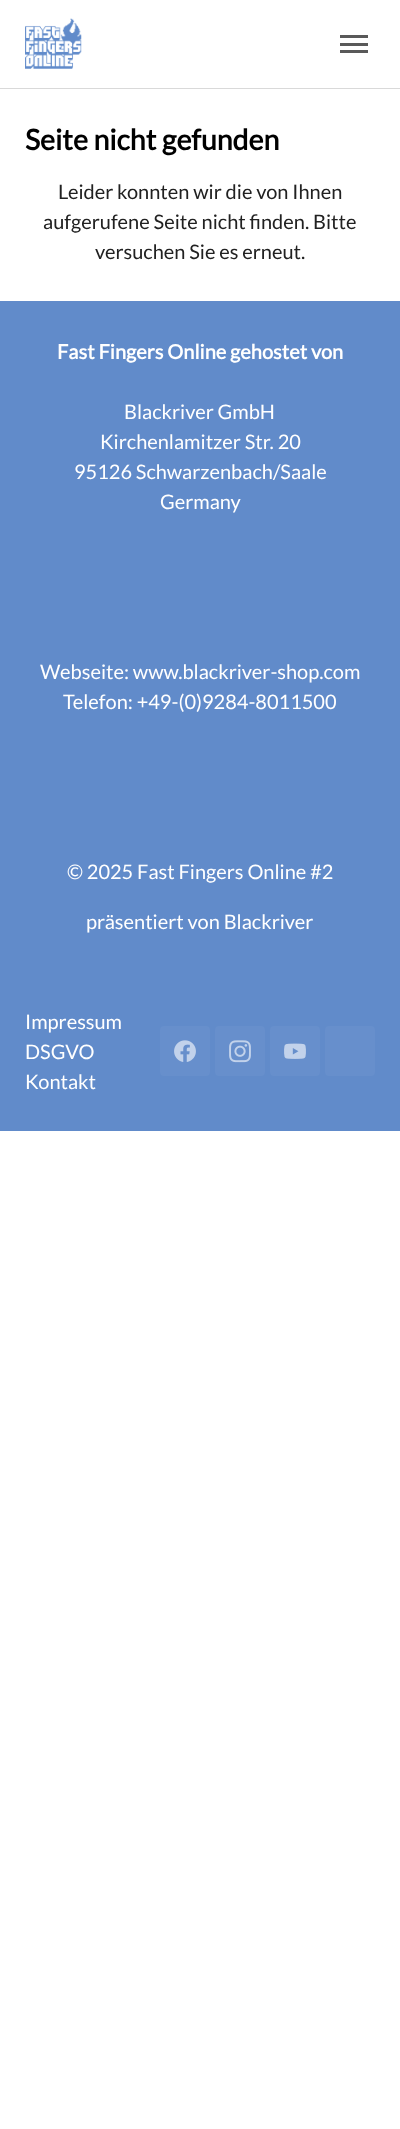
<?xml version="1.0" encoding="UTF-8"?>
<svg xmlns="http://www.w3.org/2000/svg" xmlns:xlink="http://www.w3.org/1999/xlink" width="400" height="2129">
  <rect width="100%" height="100%" fill="#ffffff" />
  <rect y="88" width="400" height="1" fill="#d9d9d9" />
  <image x="25" y="18" width="57" height="51" xlink:href="image1.png" />
  <rect x="340" y="43" width="28" height="3" fill="#595959" />
  <rect x="340" y="35" width="28" height="3" fill="#595959" />
  <rect x="340" y="50" width="28" height="3" fill="#595959" />
  <rect y="301" width="400" height="830" fill="#618bca" />
  <rect x="160" y="1026" width="50" height="50" rx="4" fill="#678fcc" />
  <image x="174" y="1040" width="22" height="22" xlink:href="image2.png" />
  <rect x="215" y="1026" width="50" height="50" rx="4" fill="#678fcc" />
  <image x="229" y="1040" width="22" height="23" xlink:href="image3.png" />
  <rect x="270" y="1026" width="50" height="50" rx="4" fill="#678fcc" />
  <image x="284" y="1043" width="22" height="16" xlink:href="image4.png" />
  <rect x="325" y="1026" width="50" height="50" rx="4" fill="#678fcc" />
  <text x="25" y="150" style="font-family: Lato; font-size: 28.5px; font-weight: bold; fill: #000000">Seite nicht gefunden</text>
  <text x="58" y="199" style="font-family: Lato; font-size: 20px; fill: #212121">Leider konnten wir die von Ihnen</text>
  <text x="43" y="229" style="font-family: Lato; font-size: 20px; fill: #212121">aufgerufene Seite nicht finden. Bitte</text>
  <text x="95" y="259" style="font-family: Lato; font-size: 20px; fill: #212121">versuchen Sie es erneut.</text>
  <text x="57" y="359" style="font-family: Lato; font-size: 20px; font-weight: bold; fill: #ffffff">Fast Fingers Online gehostet von</text>
  <text x="124" y="419" style="font-family: Lato; font-size: 20px; fill: #ffffff">Blackriver GmbH</text>
  <text x="100" y="449" style="font-family: Lato; font-size: 20px; fill: #ffffff">Kirchenlamitzer Str. 20</text>
  <text x="74" y="479" style="font-family: Lato; font-size: 20px; fill: #ffffff">95126 Schwarzenbach/Saale</text>
  <text x="160" y="509" style="font-family: Lato; font-size: 20px; fill: #ffffff">Germany</text>
  <text x="40" y="679" style="font-family: Lato; font-size: 20px; fill: #ffffff">Webseite: www.blackriver-shop.com</text>
  <text x="63" y="709" style="font-family: Lato; font-size: 20px; fill: #ffffff">Telefon: +49-(0)9284-8011500</text>
  <text x="67" y="879" style="font-family: Lato; font-size: 20px; fill: #ffffff">© 2025 Fast Fingers Online #2</text>
  <text x="86" y="929" style="font-family: Lato; font-size: 20px; fill: #ffffff">präsentiert von Blackriver</text>
  <text x="25" y="1029" style="font-family: Lato; font-size: 20px; fill: #ffffff">Impressum</text>
  <text x="25" y="1059" style="font-family: Lato; font-size: 20px; fill: #ffffff">DSGVO</text>
  <text x="25" y="1089" style="font-family: Lato; font-size: 20px; fill: #ffffff">Kontakt</text>
</svg>
